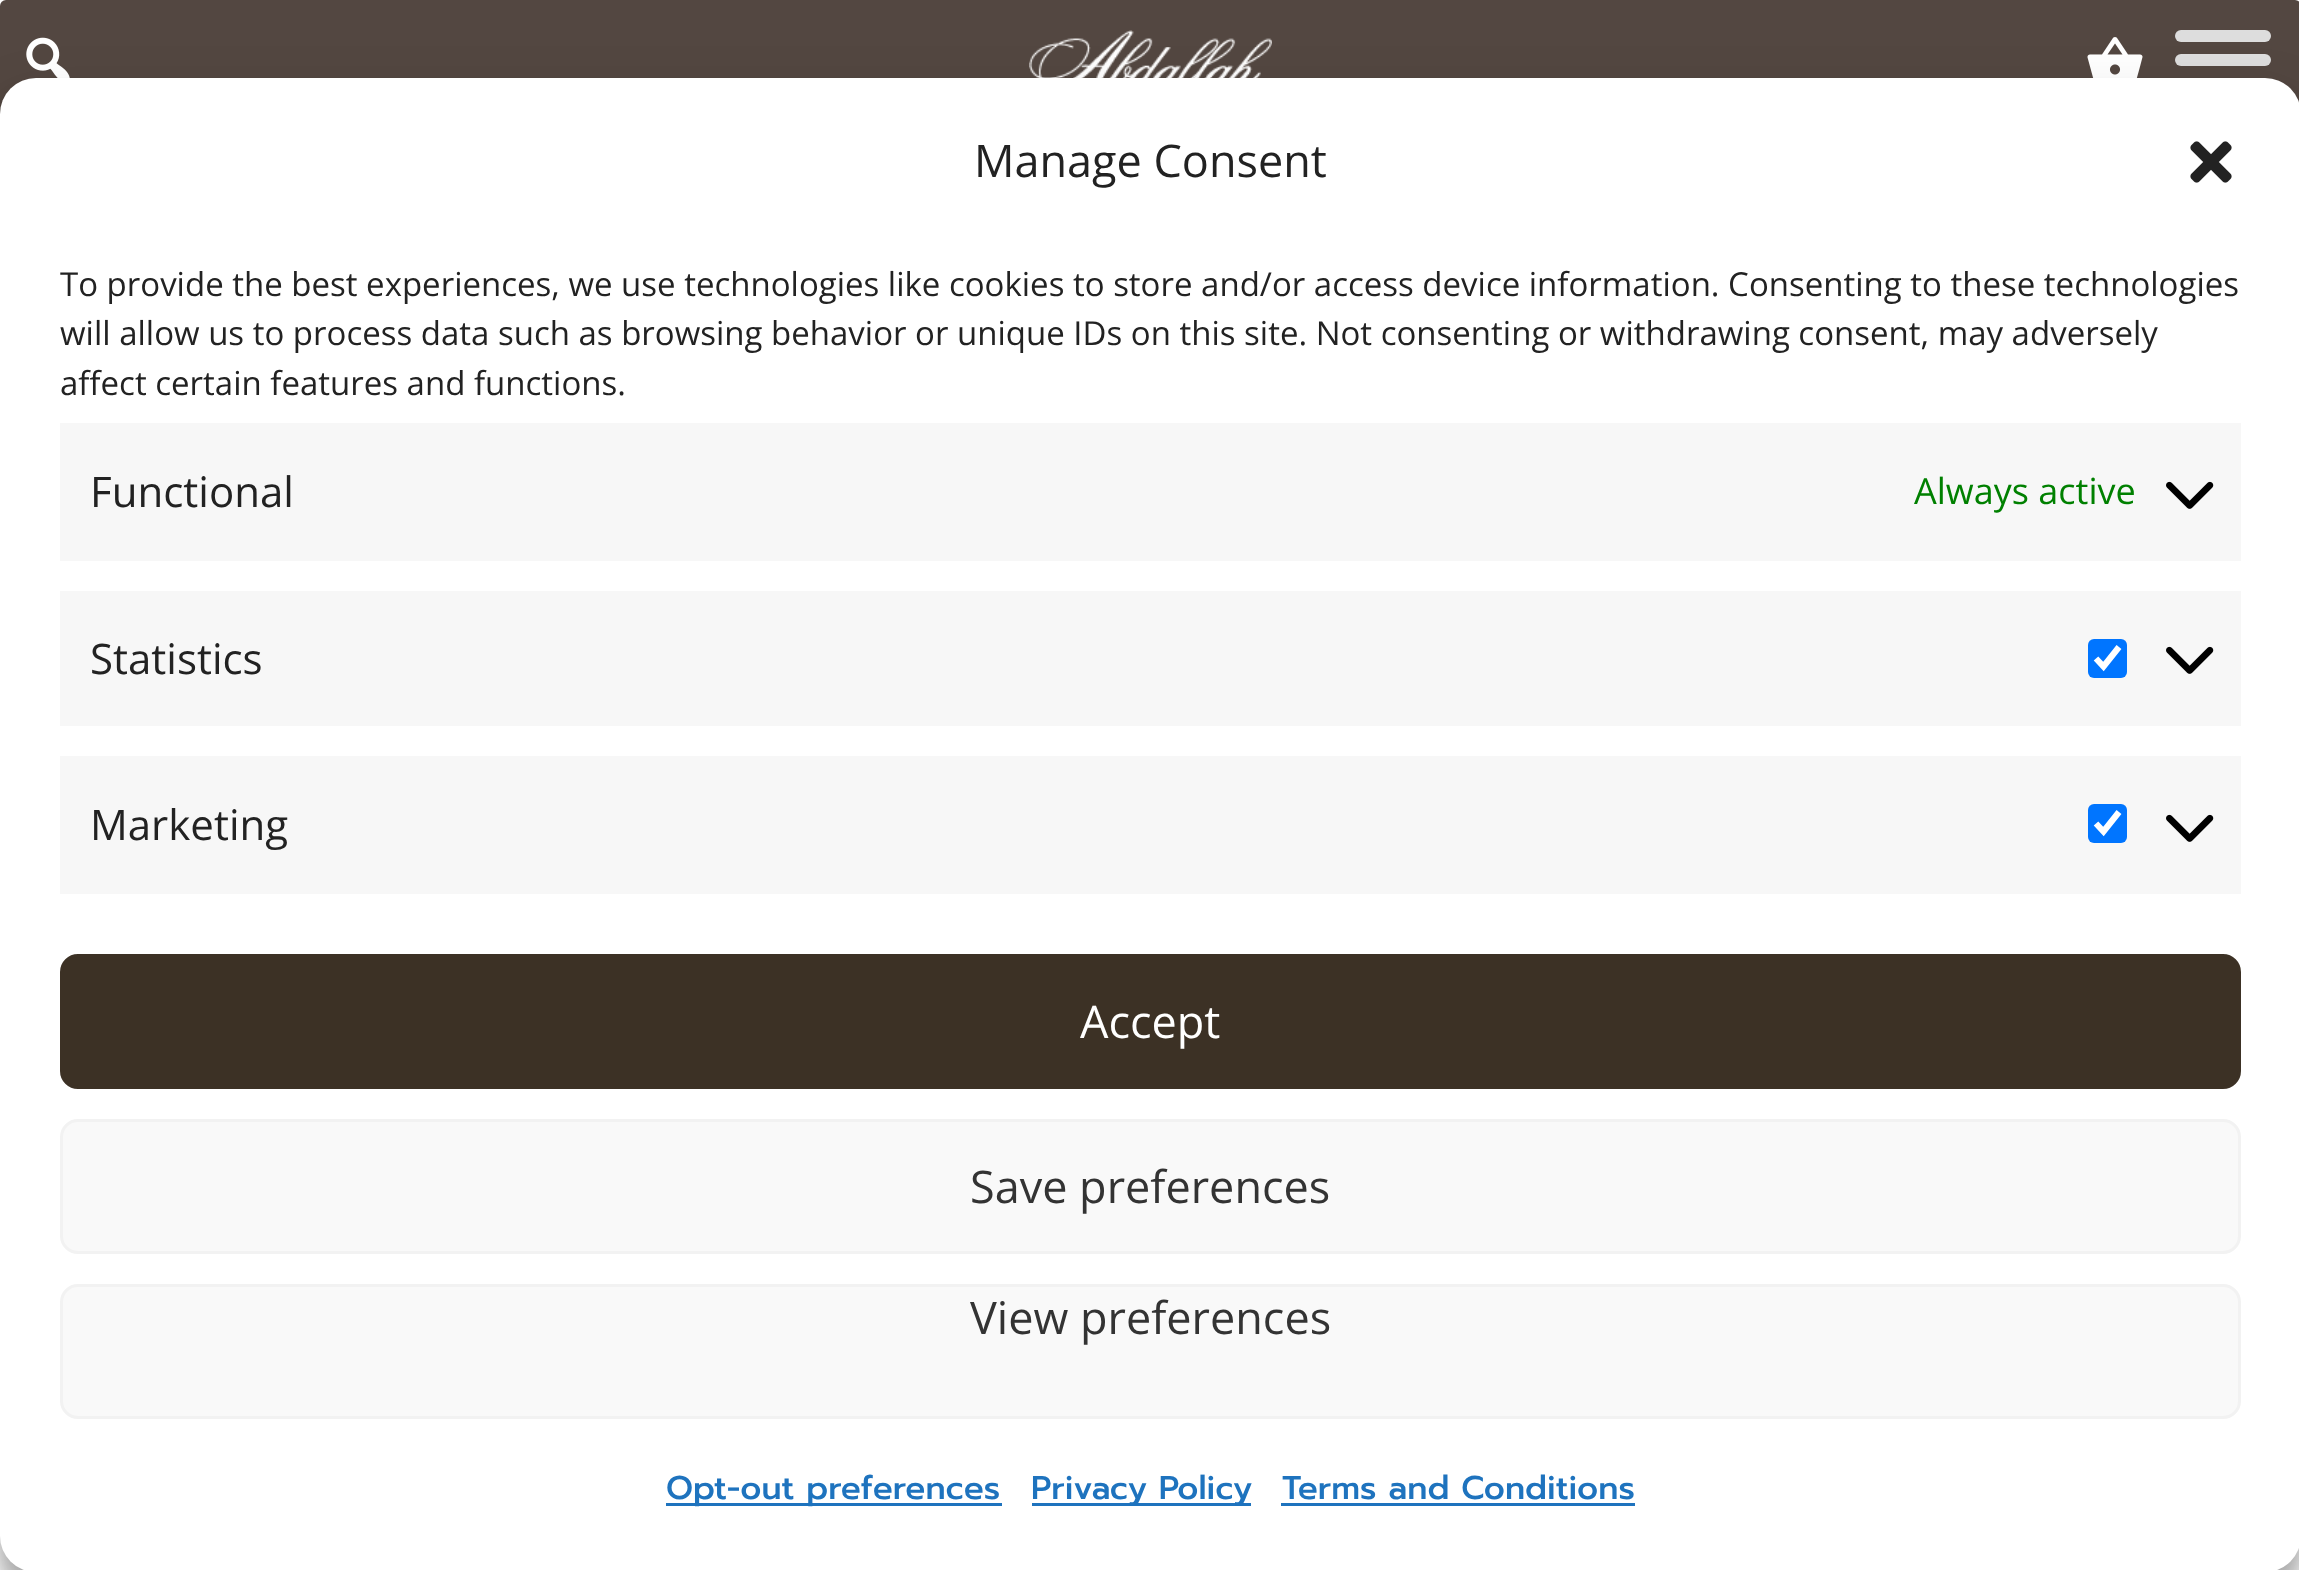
<?xml version="1.0" encoding="UTF-8"?>
<svg xmlns="http://www.w3.org/2000/svg" xmlns:xlink="http://www.w3.org/1999/xlink" width="2299" height="1570">
  <rect width="100%" height="100%" fill="#ffffff" />
  <rect width="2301" height="120" rx="6" fill="#534741" />
  <image x="26" y="37" width="44" height="41" xlink:href="image1.png" />
  <image x="1029" y="30" width="243" height="48" xlink:href="image2.png" />
  <image x="2087" y="37" width="56" height="41" xlink:href="image3.png" />
  <rect x="2175" y="30" width="96" height="12" rx="6" fill="#dddddd" />
  <rect x="2175" y="54" width="96" height="12" rx="6" fill="#dddddd" />
  <rect y="96" width="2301" height="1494" rx="36" fill="#000000" fill-opacity="0.23" filter="blur(9px)" />
  <rect y="108" width="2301" height="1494" rx="36" fill="#000000" fill-opacity="0.19" filter="blur(30px)" />
  <rect y="78" width="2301" height="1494" rx="36" fill="#ffffff" />
  <image x="2190" y="141" width="42" height="42" xlink:href="image4.png" />
  <rect x="60" y="423" width="2181" height="138" fill="#f7f7f7" />
  <image x="2166" y="481" width="48" height="28" xlink:href="image5.png" />
  <rect x="60" y="591" width="2181" height="135" fill="#f7f7f7" />
  <rect x="2088" y="639" width="39" height="39" rx="6" fill="#0075ff" />
  <path d="M 2096 658.5 l 7.5 8 l 15.5 -19.5" fill="none" stroke="#ffffff" stroke-width="6.2" />
  <image x="2166" y="646" width="48" height="28" xlink:href="image5.png" />
  <rect x="60" y="756" width="2181" height="138" fill="#f7f7f7" />
  <rect x="2088" y="804" width="39" height="39" rx="6" fill="#0075ff" />
  <path d="M 2096 823.5 l 7.5 8 l 15.5 -19.5" fill="none" stroke="#ffffff" stroke-width="6.2" />
  <image x="2166" y="814" width="48" height="28" xlink:href="image5.png" />
  <rect x="61.5" y="955.5" width="2178" height="132" rx="16.5" fill="#3c3125" stroke="#3c3125" stroke-width="3" />
  <rect x="61.5" y="1120.5" width="2178" height="132" rx="16.5" fill="#f9f9f9" stroke="#f2f2f2" stroke-width="3" />
  <rect x="61.5" y="1285.5" width="2178" height="132" rx="16.5" fill="#f9f9f9" stroke="#f2f2f2" stroke-width="3" />
  <rect x="666" y="1503" width="336" height="3" fill="#1e73be" />
  <rect x="1032" y="1503" width="219" height="3" fill="#1e73be" />
  <rect x="1281" y="1503" width="354" height="3" fill="#1e73be" />
  <text x="974" y="177" style="font-family: Open Sans; font-size: 45px; fill: #222222">Manage Consent</text>
  <text x="60" y="296" style="font-family: Open Sans; font-size: 33px; fill: #222222">To provide the best experiences, we use technologies like cookies to store and/or access device information. Consenting to these technologies</text>
  <text x="60" y="345" style="font-family: Open Sans; font-size: 33px; fill: #222222">will allow us to process data such as browsing behavior or unique IDs on this site. Not consenting or withdrawing consent, may adversely</text>
  <text x="60" y="395" style="font-family: Open Sans; font-size: 33px; fill: #222222">affect certain features and functions.</text>
  <text x="90" y="507" style="font-family: Open Sans; font-size: 42px; fill: #222222">Functional</text>
  <text x="1914" y="504" style="font-family: Open Sans; font-size: 36px; fill: #008000">Always active</text>
  <text x="90" y="674" style="font-family: Open Sans; font-size: 42px; fill: #222222">Statistics</text>
  <text x="90" y="840" style="font-family: Open Sans; font-size: 42px; fill: #222222">Marketing</text>
  <text x="1080" y="1038" style="font-family: Open Sans; font-size: 45px; fill: #ffffff">Accept</text>
  <text x="970" y="1203" style="font-family: Open Sans; font-size: 45px; fill: #333333">Save preferences</text>
  <text x="970" y="1334" style="font-family: Open Sans; font-size: 45px; fill: #333333">View preferences</text>
  <text x="666" y="1499" style="font-family: Prompt; font-size: 33px; font-weight: 500; fill: #1e73be">Opt-out preferences</text>
  <text x="1031" y="1499" style="font-family: Prompt; font-size: 33px; font-weight: 500; fill: #1e73be">Privacy Policy</text>
  <text x="1282" y="1499" style="font-family: Prompt; font-size: 33px; font-weight: 500; fill: #1e73be">Terms and Conditions</text>
</svg>
